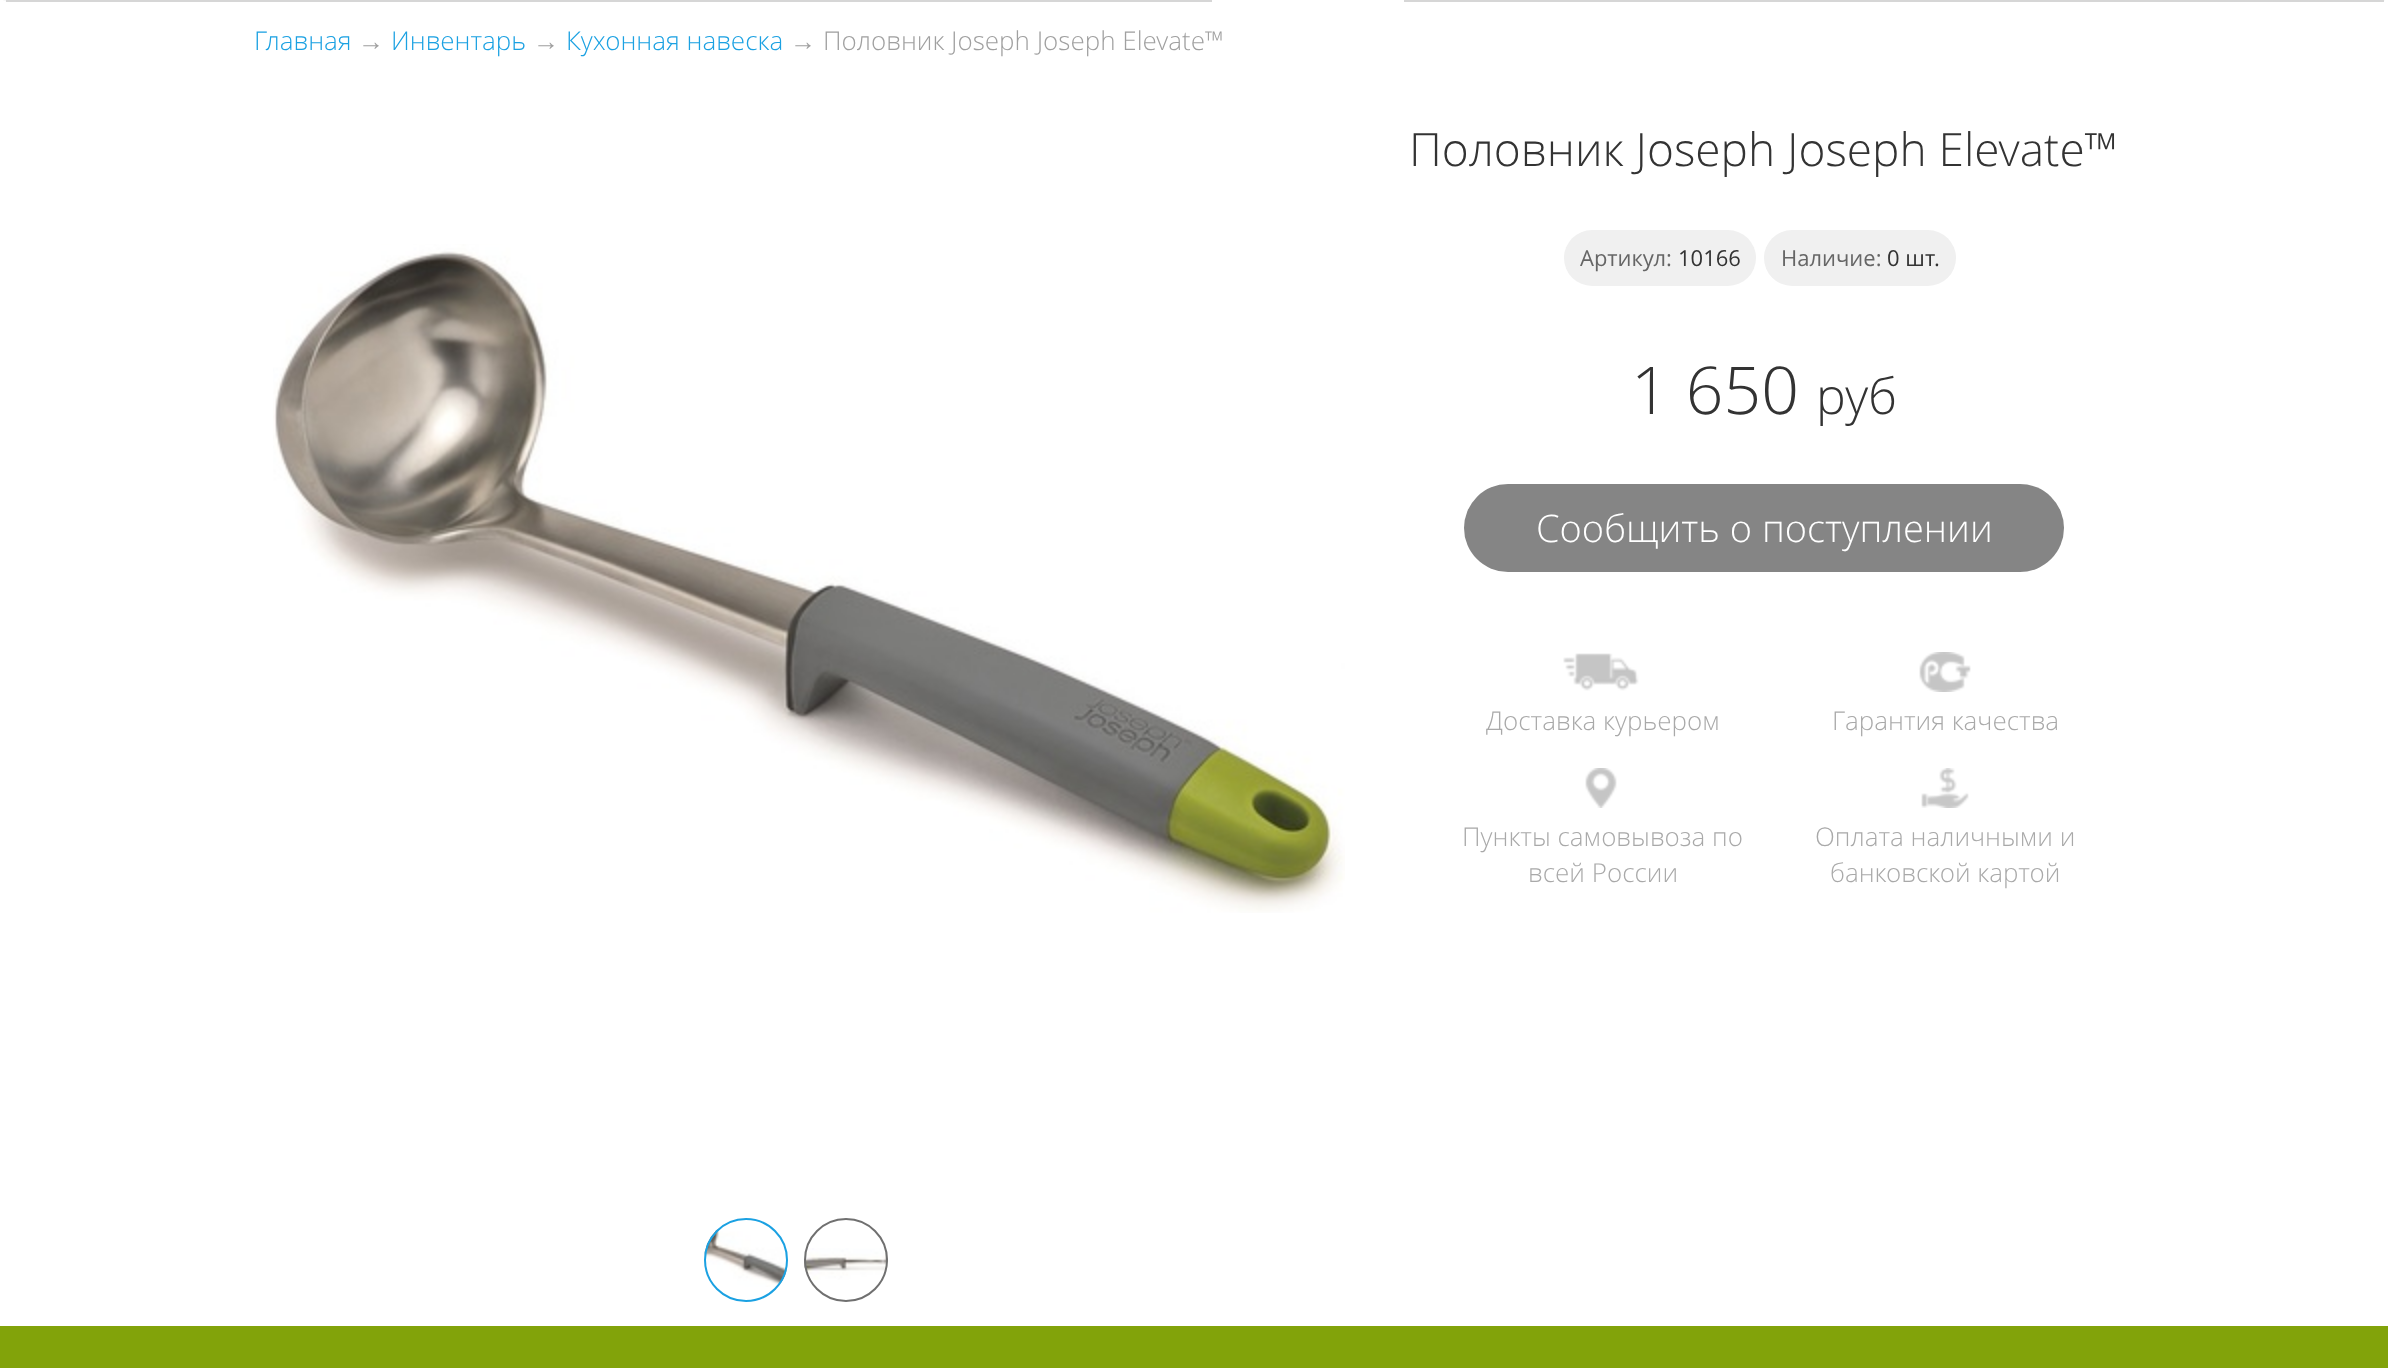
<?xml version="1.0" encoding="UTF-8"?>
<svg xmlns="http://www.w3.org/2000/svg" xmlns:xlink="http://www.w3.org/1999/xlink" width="2388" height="1368">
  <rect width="100%" height="100%" fill="#ffffff" />
  <rect y="-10" width="2388" height="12" rx="10" fill="#f7f7f7" />
  <rect x="6" width="2378" height="2" fill="#d6d6d6" />
  <rect x="1212" width="192" height="2" fill="#ffffff" />
  <image x="273" y="244" width="1072" height="669" xlink:href="image1.png" />
  <image x="704" y="1228" width="83" height="59" xlink:href="image2.png" />
  <circle cx="746" cy="1260" r="41" fill="none" stroke="#1ba1e2" stroke-width="2" />
  <image x="804" y="1248" width="84" height="32" xlink:href="image3.png" />
  <circle cx="846" cy="1260" r="41" fill="none" stroke="#707070" stroke-width="2" />
  <rect x="1564" y="230" width="192" height="56" rx="28" fill="#f0f0f0" />
  <rect x="1764" y="230" width="192" height="56" rx="28" fill="#f0f0f0" />
  <rect x="1464" y="484" width="600" height="88" rx="44" fill="#858585" />
  <image x="1563" y="653" width="76" height="38" xlink:href="image4.png" />
  <image x="1919" y="652" width="52" height="40" xlink:href="image5.png" />
  <image x="1585" y="768" width="32" height="40" xlink:href="image6.png" />
  <image x="1921" y="768" width="48" height="40" xlink:href="image7.png" />
  <rect y="1326" width="2388" height="42" fill="#82a30a" />
  <text x="254" y="50" style="font-family: Open Sans; font-size: 26px; font-weight: 300; fill: #1ba1e2">Главная</text>
  <text x="358" y="50" style="font-family: Liberation Serif; font-size: 26px; fill: #a0a0a0">→</text>
  <text x="391" y="50" style="font-family: Open Sans; font-size: 26px; font-weight: 300; fill: #1ba1e2">Инвентарь</text>
  <text x="533" y="50" style="font-family: Liberation Serif; font-size: 26px; fill: #a0a0a0">→</text>
  <text x="566" y="50" style="font-family: Open Sans; font-size: 26px; font-weight: 300; fill: #1ba1e2">Кухонная навеска</text>
  <text x="790" y="50" style="font-family: Liberation Serif; font-size: 26px; fill: #a0a0a0">→</text>
  <text x="823" y="50" style="font-family: Open Sans; font-size: 26px; font-weight: 300; fill: #a0a0a0">Половник Joseph Joseph Elevate™</text>
  <text x="1409" y="166" style="font-family: Open Sans; font-size: 46px; font-weight: 300; fill: #333333">Половник Joseph Joseph Elevate™</text>
  <text x="1580" y="266" style="font-family: Open Sans; font-size: 22px; fill: #666666">Артикул:</text>
  <text x="1678" y="266" style="font-family: Open Sans; font-size: 22px; fill: #333333">10166</text>
  <text x="1781" y="266" style="font-family: Open Sans; font-size: 22px; fill: #666666">Наличие:</text>
  <text x="1887" y="266" style="font-family: Open Sans; font-size: 22px; fill: #333333">0 шт.</text>
  <text x="1631" y="414" style="font-family: Open Sans; font-size: 66px; font-weight: 300; fill: #333333">1 650</text>
  <text x="1816" y="414" style="font-family: Open Sans; font-size: 50px; font-weight: 300; fill: #333333">руб</text>
  <text x="1536" y="542" style="font-family: Open Sans; font-size: 38px; font-weight: 300; fill: #ffffff">Сообщить о поступлении</text>
  <text x="1486" y="730" style="font-family: Open Sans; font-size: 26px; font-weight: 300; fill: #a9a9a9">Доставка курьером</text>
  <text x="1832" y="730" style="font-family: Open Sans; font-size: 26px; font-weight: 300; fill: #a9a9a9">Гарантия качества</text>
  <text x="1462" y="846" style="font-family: Open Sans; font-size: 26px; font-weight: 300; fill: #a9a9a9">Пункты самовывоза по</text>
  <text x="1528" y="882" style="font-family: Open Sans; font-size: 26px; font-weight: 300; fill: #a9a9a9">всей России</text>
  <text x="1815" y="846" style="font-family: Open Sans; font-size: 26px; font-weight: 300; fill: #a9a9a9">Оплата наличными и</text>
  <text x="1830" y="882" style="font-family: Open Sans; font-size: 26px; font-weight: 300; fill: #a9a9a9">банковской картой</text>
</svg>
